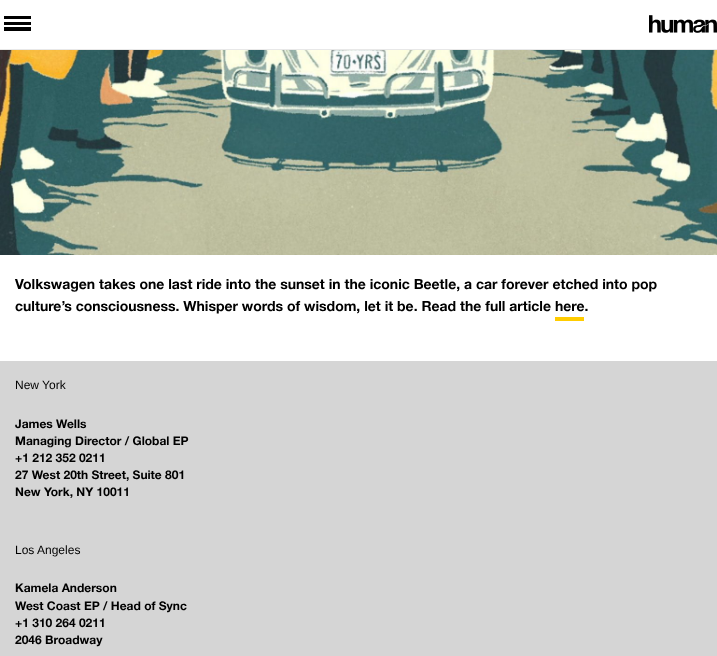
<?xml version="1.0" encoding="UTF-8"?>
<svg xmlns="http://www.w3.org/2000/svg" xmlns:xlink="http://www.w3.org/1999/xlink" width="717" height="656">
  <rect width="100%" height="100%" fill="#ffffff" />
  <rect y="49" width="717" height="1" fill="#e8e8e8" />
  <rect x="4" y="16" width="27" height="3" fill="#000000" />
  <rect x="4" y="22" width="27" height="3" fill="#000000" />
  <rect x="4" y="27" width="27" height="4" fill="#000000" />
  <image x="649" y="15" width="68" height="18" xlink:href="image1.png" />
  <image x="0" y="50" width="717" height="205" xlink:href="image2.png" />
  <rect x="555" y="317" width="29" height="4" fill="#ffcc00" />
  <rect y="361" width="717" height="295" fill="#d5d5d5" />
  <text x="15" y="289" style="font-family: Helvetica Neue; font-size: 14px; font-weight: bold; fill: #000000">Volkswagen takes one last ride into the sunset in the iconic Beetle, a car forever etched into pop</text>
  <text x="15" y="311" style="font-family: Helvetica Neue; font-size: 14px; font-weight: bold; fill: #000000">culture’s consciousness. Whisper words of wisdom, let it be. Read the full article here.</text>
  <text x="15" y="389" style="font-family: Liberation Sans; font-size: 12px; fill: #000000">New York</text>
  <text x="15" y="428" style="font-family: Helvetica Neue; font-size: 12px; font-weight: bold; fill: #000000">James Wells</text>
  <text x="15" y="445" style="font-family: Helvetica Neue; font-size: 12px; font-weight: bold; fill: #000000">Managing Director / Global EP</text>
  <text x="15" y="462" style="font-family: Helvetica Neue; font-size: 12px; font-weight: bold; fill: #000000">+1 212 352 0211</text>
  <text x="15" y="479" style="font-family: Helvetica Neue; font-size: 12px; font-weight: bold; fill: #000000">27 West 20th Street, Suite 801</text>
  <text x="15" y="496" style="font-family: Helvetica Neue; font-size: 12px; font-weight: bold; fill: #000000">New York, NY 10011</text>
  <text x="15" y="554" style="font-family: Liberation Sans; font-size: 12px; fill: #000000">Los Angeles</text>
  <text x="15" y="592" style="font-family: Helvetica Neue; font-size: 12px; font-weight: bold; fill: #000000">Kamela Anderson</text>
  <text x="15" y="610" style="font-family: Helvetica Neue; font-size: 12px; font-weight: bold; fill: #000000">West Coast EP / Head of Sync</text>
  <text x="15" y="627" style="font-family: Helvetica Neue; font-size: 12px; font-weight: bold; fill: #000000">+1 310 264 0211</text>
  <text x="15" y="644" style="font-family: Helvetica Neue; font-size: 12px; font-weight: bold; fill: #000000">2046 Broadway</text>
</svg>
